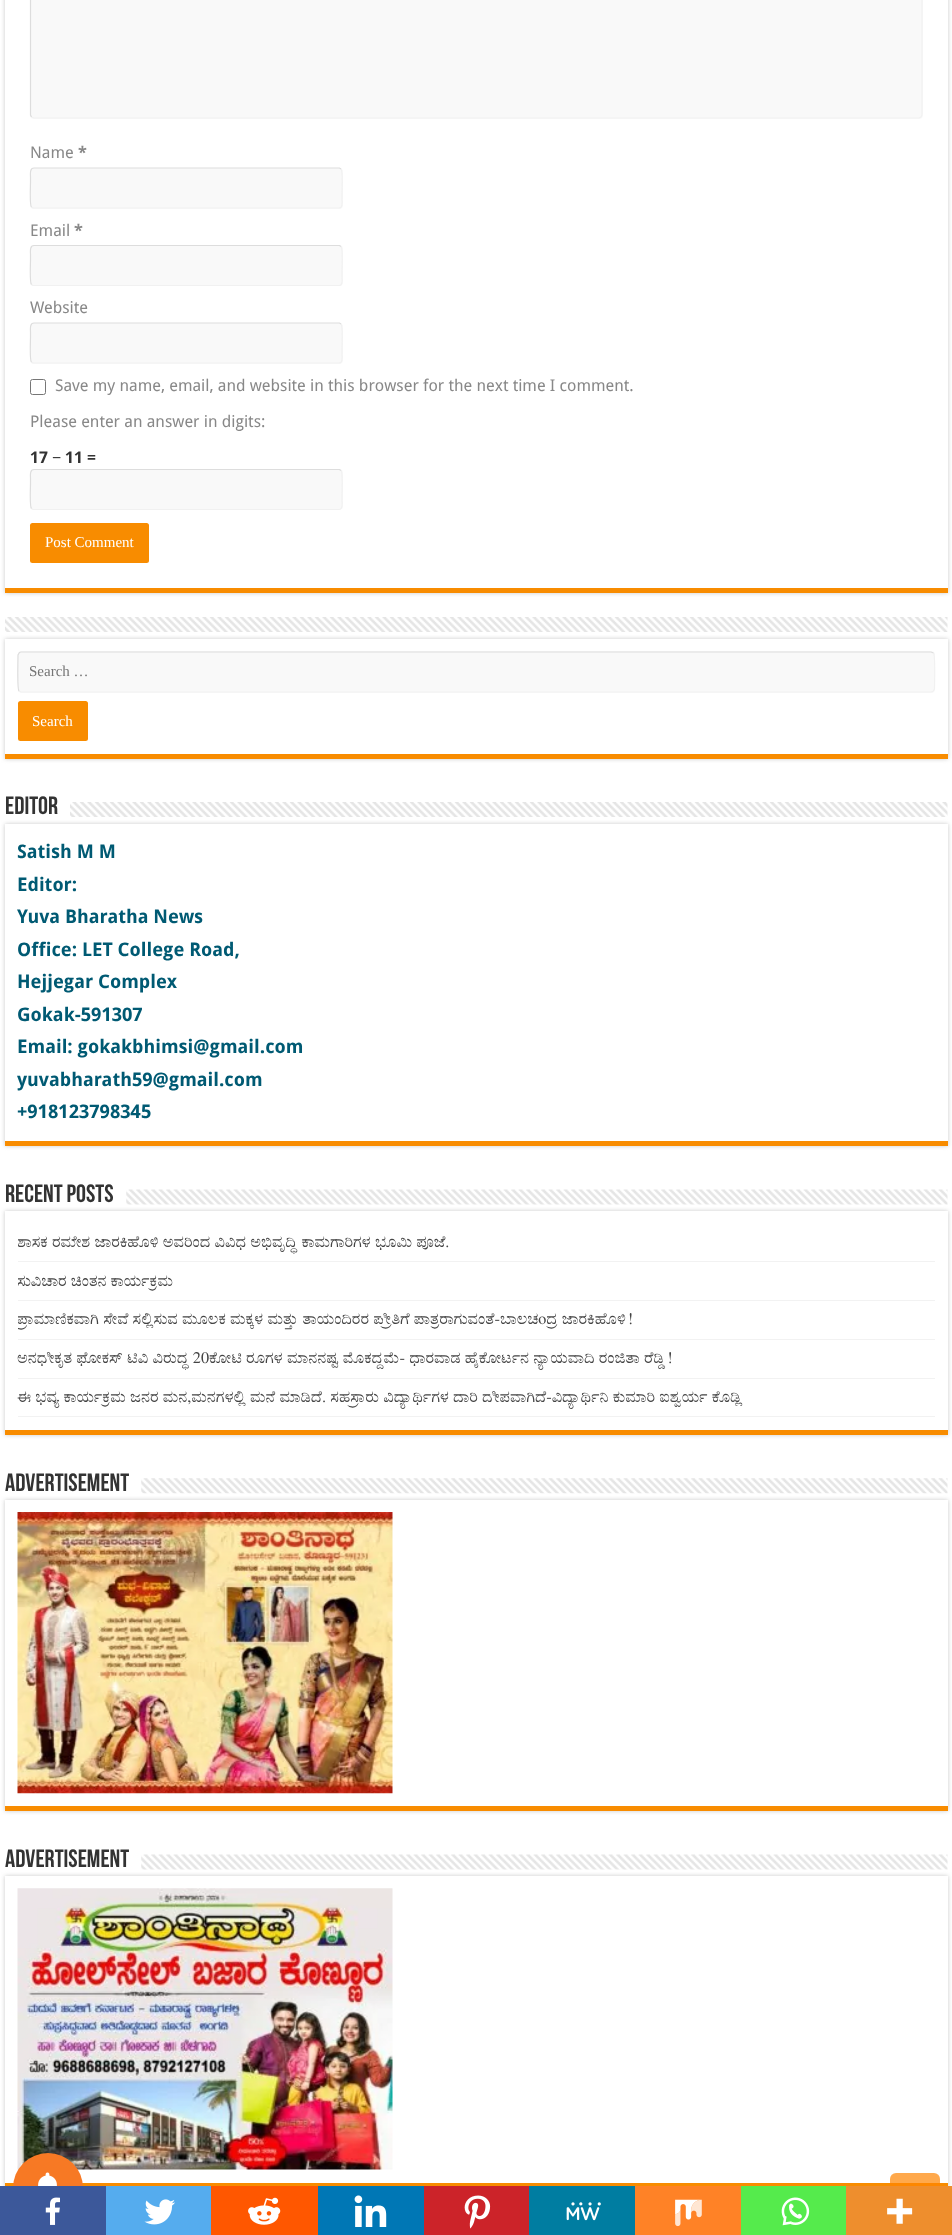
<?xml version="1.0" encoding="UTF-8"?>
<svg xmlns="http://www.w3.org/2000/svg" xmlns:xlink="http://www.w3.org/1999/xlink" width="952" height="2235">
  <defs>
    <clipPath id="clip1"><rect x="18" y="1224" width="917" height="37" /></clipPath>
    <clipPath id="clip2"><rect x="18" y="1263" width="917" height="37" /></clipPath>
    <clipPath id="clip3"><rect x="18" y="1301" width="917" height="38" /></clipPath>
  </defs>
  <rect width="100%" height="100%" fill="#ffffff" />
  <rect x="5" y="-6" width="943" height="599" fill="#cacaca" filter="blur(2px)" />
  <rect x="5" width="943" height="588" fill="#ffffff" />
  <rect x="5" y="588" width="943" height="5" fill="#f88c00" />
  <rect x="30" y="-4" width="893" height="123" rx="4" fill="#f9f9f9" />
  <path d="M 921 -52 l 1 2 v 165 l -1 2 l -2 1 h -885 l -2.5 -1" fill="none" stroke="#f1f1f1" stroke-width="1.2" />
  <path d="M 31.5 117 l -1 -2 v -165 l 1 -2 l 2.5 -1 h 885 l 2 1" fill="none" stroke="#dddddd" stroke-width="1.2" />
  <rect x="30" y="168" width="313" height="41" rx="4" fill="#f9f9f9" />
  <path d="M 341 169 c 2 2 1 21 1 25 v 5.5 c 0 2 1 8.5 -3 8.5 h -306 l -1.5 -1" fill="none" stroke="#f1f1f1" stroke-width="1.2" />
  <path d="M 31.5 207 c -2 -2 -1 -20.5 -1 -24.5 v -5.5 c 0 -2.5 -1 -9 3.5 -9 h 305.5 l 1.5 1" fill="none" stroke="#dddddd" stroke-width="1.2" />
  <rect x="30" y="245" width="313" height="41" rx="4" fill="#f9f9f9" />
  <path d="M 341 246.5 c 2 2 1 21 1 24.5 v 6 c 0 2 1 8.5 -3 8.5 h -306 l -1.5 -1" fill="none" stroke="#f1f1f1" stroke-width="1.2" />
  <path d="M 31.5 284.5 c -2 -2 -1 -20.5 -1 -24.5 v -5.5 c 0 -2.5 -1 -9 3.5 -9 h 305.5 l 1.5 1" fill="none" stroke="#dddddd" stroke-width="1.2" />
  <rect x="30" y="323" width="313" height="41" rx="4" fill="#f9f9f9" />
  <path d="M 341 324 c 2 2 1 21 1 25 v 5.5 c 0 2 1 8.5 -3 8.5 h -306 l -1.5 -1" fill="none" stroke="#f1f1f1" stroke-width="1.2" />
  <path d="M 31.5 362 c -2 -2 -1 -20.5 -1 -24.5 v -5.5 c 0 -2.5 -1 -9 3.5 -9 h 305.5 l 1.5 1" fill="none" stroke="#dddddd" stroke-width="1.2" />
  <rect x="30.5" y="379.5" width="15" height="15" rx="2" fill="none" stroke="#767676" />
  <rect x="30" y="469" width="313" height="41" rx="4" fill="#f9f9f9" />
  <path d="M 341 470.5 c 2 2 1 20.5 1 24.5 v 5.5 c 0 2.5 1 9 -3 9 h -306 l -1.5 -1" fill="none" stroke="#f1f1f1" stroke-width="1.2" />
  <path d="M 31.5 508.5 c -2 -2 -1 -21 -1 -24.5 v -6 c 0 -2 -1 -8.5 3.5 -8.5 h 305.5 l 1.5 1" fill="none" stroke="#dddddd" stroke-width="1.2" />
  <rect x="30" y="523" width="119" height="40" rx="2.5" fill="#f88c00" />
  <rect x="5" y="1876" width="943" height="312" fill="#cacaca" filter="blur(2px)" />
  <rect x="5" y="1876" width="943" height="307" fill="#ffffff" />
  <rect x="5" y="2183" width="943" height="3" fill="#f88c00" />
  <image x="17" y="1888" width="376" height="282" xlink:href="image16.png" />
  <circle cx="48" cy="2188" r="35" fill="#f77924" />
  <rect y="2186" width="106" height="49" fill="#3c589a" />
  <image x="45" y="2197" width="15" height="28" xlink:href="image1.png" />
  <rect x="106" y="2186" width="105" height="49" fill="#55acee" />
  <image x="144" y="2199" width="31" height="26" xlink:href="image2.png" />
  <rect x="211" y="2186" width="107" height="49" fill="#ff5700" />
  <image x="248" y="2197" width="33" height="28" xlink:href="image3.png" />
  <rect x="318" y="2186" width="106" height="49" fill="#0077b5" />
  <image x="354" y="2195" width="33" height="32" xlink:href="image4.png" />
  <rect x="424" y="2186" width="105" height="49" fill="#cc2329" />
  <image x="464" y="2195" width="27" height="34" xlink:href="image5.png" />
  <rect x="529" y="2186" width="106" height="49" fill="#007da1" />
  <image x="566" y="2202" width="35" height="19" xlink:href="image6.png" />
  <rect x="635" y="2186" width="106" height="49" fill="#ff8226" />
  <image x="675" y="2199" width="27" height="28" xlink:href="image7.png" />
  <rect x="741" y="2186" width="105" height="49" fill="#55eb4c" />
  <image x="781" y="2197" width="29" height="29" xlink:href="image8.png" />
  <rect x="890" y="2173" width="50" height="50" rx="6" fill="#ff8500" fill-opacity="0.7" />
  <rect x="846" y="2186" width="106" height="49" fill="#ee8e2d" />
  <image x="887" y="2198" width="26" height="26" xlink:href="image9.png" />
  <image x="5" y="617" width="943" height="15" xlink:href="image10.png" />
  <rect x="5" y="639" width="943" height="120" fill="#cacaca" filter="blur(2px)" />
  <rect x="5" y="639" width="943" height="115" fill="#ffffff" />
  <rect x="5" y="754" width="943" height="5" fill="#f88c00" />
  <rect x="18" y="651" width="917" height="42" rx="4" fill="#f9f9f9" />
  <path d="M 933.5 653 c 2 2 1 31 1 36 l -0.5 1 c -0.5 1 -1.5 2 -3 2 h -910 l -2 -1" fill="none" stroke="#f1f1f1" stroke-width="1.2" />
  <path d="M 19 691 c -2 -2 -1 -31 -1 -36 l 0.5 -1 c 0.5 -1.5 1.5 -2 2.5 -2 h 910 l 2.5 1" fill="none" stroke="#dddddd" stroke-width="1.2" />
  <rect x="18" y="701" width="70" height="40" rx="2.5" fill="#f88c00" />
  <image x="70" y="802" width="878" height="15" xlink:href="image11.png" />
  <rect x="5" y="824" width="943" height="322" fill="#cacaca" filter="blur(2px)" />
  <rect x="5" y="824" width="943" height="317" fill="#ffffff" />
  <rect x="5" y="1141" width="943" height="5" fill="#f88c00" />
  <rect x="5" y="1211" width="943" height="224" fill="#cacaca" filter="blur(2px)" />
  <image x="126" y="1189" width="822" height="16" xlink:href="image12.png" />
  <rect x="5" y="1211" width="943" height="219" fill="#ffffff" />
  <rect x="5" y="1430" width="943" height="5" fill="#f88c00" />
  <rect x="18" y="1261" width="917" height="1" fill="#f2f2f2" />
  <rect x="18" y="1300" width="917" height="1" fill="#f2f2f2" />
  <rect x="18" y="1339" width="917" height="1" fill="#f2f2f2" />
  <rect x="18" y="1378" width="917" height="1" fill="#f2f2f2" />
  <rect x="18" y="1416" width="917" height="1" fill="#f2f2f2" />
  <rect x="5" y="1500" width="943" height="311" fill="#cacaca" filter="blur(2px)" />
  <image x="141" y="1478" width="807" height="16" xlink:href="image13.png" />
  <rect x="5" y="1500" width="943" height="306" fill="#ffffff" />
  <rect x="5" y="1806" width="943" height="5" fill="#f88c00" />
  <image x="17" y="1512" width="376" height="282" xlink:href="image14.png" />
  <image x="141" y="1854" width="807" height="16" xlink:href="image15.png" />
  <image x="38" y="2172" width="19" height="14" xlink:href="image17.png" />
  <text x="30" y="158" style="font-family: Droid Sans; font-size: 16.25px; fill: #888888">Name</text>
  <text x="78" y="158" style="font-family: Droid Sans; font-size: 16.25px; font-weight: bold; fill: #888888">*</text>
  <text x="30" y="236" style="font-family: Droid Sans; font-size: 16.25px; fill: #888888">Email</text>
  <text x="74" y="236" style="font-family: Droid Sans; font-size: 16.25px; font-weight: bold; fill: #888888">*</text>
  <text x="30" y="313" style="font-family: Droid Sans; font-size: 16.25px; fill: #888888">Website</text>
  <text x="55" y="391" style="font-family: Droid Sans; font-size: 16.25px; fill: #888888">Save my name, email, and website in this browser for the next time I comment.</text>
  <text x="30" y="427" style="font-family: Droid Sans; font-size: 16.25px; fill: #888888">Please enter an answer in digits:</text>
  <text x="30" y="463" style="font-family: Droid Sans; font-size: 16.25px; font-weight: bold; fill: #333333">17</text>
  <text x="52" y="463" style="font-family: Liberation Serif; font-size: 16.25px; font-weight: bold; fill: #333333">−</text>
  <text x="65" y="463" style="font-family: Droid Sans; font-size: 16.25px; font-weight: bold; fill: #333333">11 =</text>
  <text x="45" y="547" style="font-family: Liberation Serif; font-size: 15px; fill: #ffffff">Post Comment</text>
  <text x="29" y="676" style="font-family: Liberation Serif; font-size: 15px; fill: #757575">Search …</text>
  <text x="32" y="726" style="font-family: Liberation Serif; font-size: 15px; fill: #ffffff">Search</text>
  <text x="5" y="814" style="font-family: Bebas Neue; font-size: 25px; font-weight: bold; fill: #333333">Editor</text>
  <text x="17" y="858" style="font-family: Droid Sans; font-size: 18.75px; font-weight: bold; fill: #005a73">Satish M M</text>
  <text x="17" y="891" style="font-family: Droid Sans; font-size: 18.75px; font-weight: bold; fill: #005a73">Editor:</text>
  <text x="17" y="923" style="font-family: Droid Sans; font-size: 18.75px; font-weight: bold; fill: #005a73">Yuva Bharatha News</text>
  <text x="17" y="956" style="font-family: Droid Sans; font-size: 18.75px; font-weight: bold; fill: #005a73">Office: LET College Road,</text>
  <text x="17" y="988" style="font-family: Droid Sans; font-size: 18.75px; font-weight: bold; fill: #005a73">Hejjegar Complex</text>
  <text x="17" y="1021" style="font-family: Droid Sans; font-size: 18.75px; font-weight: bold; fill: #005a73">Gokak-591307</text>
  <text x="17" y="1053" style="font-family: Droid Sans; font-size: 18.75px; font-weight: bold; fill: #005a73">Email: gokakbhimsi@gmail.com</text>
  <text x="17" y="1086" style="font-family: Droid Sans; font-size: 18.75px; font-weight: bold; fill: #005a73">yuvabharath59@gmail.com</text>
  <text x="17" y="1118" style="font-family: Droid Sans; font-size: 18.75px; font-weight: bold; fill: #005a73">+918123798345</text>
  <text x="5" y="1202" style="font-family: Bebas Neue; font-size: 25px; font-weight: bold; fill: #333333">Recent Posts</text>
  <g clip-path="url(#clip1)">
    <text x="17" y="1247" word-spacing="0.25" style="font-family: FreeSerif; font-size: 16.25px; fill: #444444">ಶಾಸಕ ರಮೇಶ ಜಾರಕಿಹೊಳಿ ಅವರಿಂದ ವಿವಿಧ ಅಭಿವೃದ್ಧಿ ಕಾಮಗಾರಿಗಳ ಭೂಮಿ ಪೂಜೆ.</text>
  </g>
  <g clip-path="url(#clip2)">
    <text x="17" y="1286" style="font-family: FreeSerif; font-size: 16.25px; fill: #444444">ಸುವಿಚಾರ ಚಿಂತನ ಕಾರ್ಯಕ್ರಮ</text>
  </g>
  <g clip-path="url(#clip3)">
    <text x="17" y="1324" word-spacing="0.25" style="font-family: FreeSerif; font-size: 16.25px; fill: #444444">ಪ್ರಾಮಾಣಿಕವಾಗಿ ಸೇವೆ ಸಲ್ಲಿಸುವ ಮೂಲಕ ಮಕ್ಕಳ ಮತ್ತು ತಾಯಂದಿರರ ಪ್ರೀತಿಗೆ ಪಾತ್ರರಾಗುವಂತೆ-ಬಾಲಚoದ್ರ ಜಾರಕಿಹೊಳಿ!</text>
  </g>
  <text x="17" y="1363" word-spacing="0.2" style="font-family: FreeSerif; font-size: 16.25px; fill: #444444">ಅನಧೀಕೃತ ಫೋಕಸ್ ಟಿವಿ ವಿರುದ್ಧ 20ಕೋಟಿ ರೂಗಳ ಮಾನನಷ್ಟ ಮೊಕದ್ದಮೆ- ಧಾರವಾಡ ಹೈಕೋರ್ಟನ ನ್ಯಾಯವಾದಿ ರಂಜಿತಾ ರೆಡ್ಡಿ!</text>
  <text x="17" y="1402" word-spacing="0.2" style="font-family: FreeSerif; font-size: 16.25px; fill: #444444">ಈ ಭವ್ಯ ಕಾರ್ಯಕ್ರಮ ಜನರ ಮನ,ಮನಗಳಲ್ಲಿ ಮನೆ ಮಾಡಿದೆ. ಸಹಸ್ರಾರು ವಿದ್ಯಾರ್ಥಿಗಳ ದಾರಿ ದೀಪವಾಗಿದೆ-ವಿದ್ಯಾರ್ಥಿನಿ ಕುಮಾರಿ ಐಶ್ವರ್ಯ ಕೊಡ್ಲಿ</text>
  <text x="5" y="1491" style="font-family: Bebas Neue; font-size: 25px; font-weight: bold; fill: #333333">Advertisement</text>
  <text x="5" y="1867" style="font-family: Bebas Neue; font-size: 25px; font-weight: bold; fill: #333333">Advertisement</text>
</svg>
